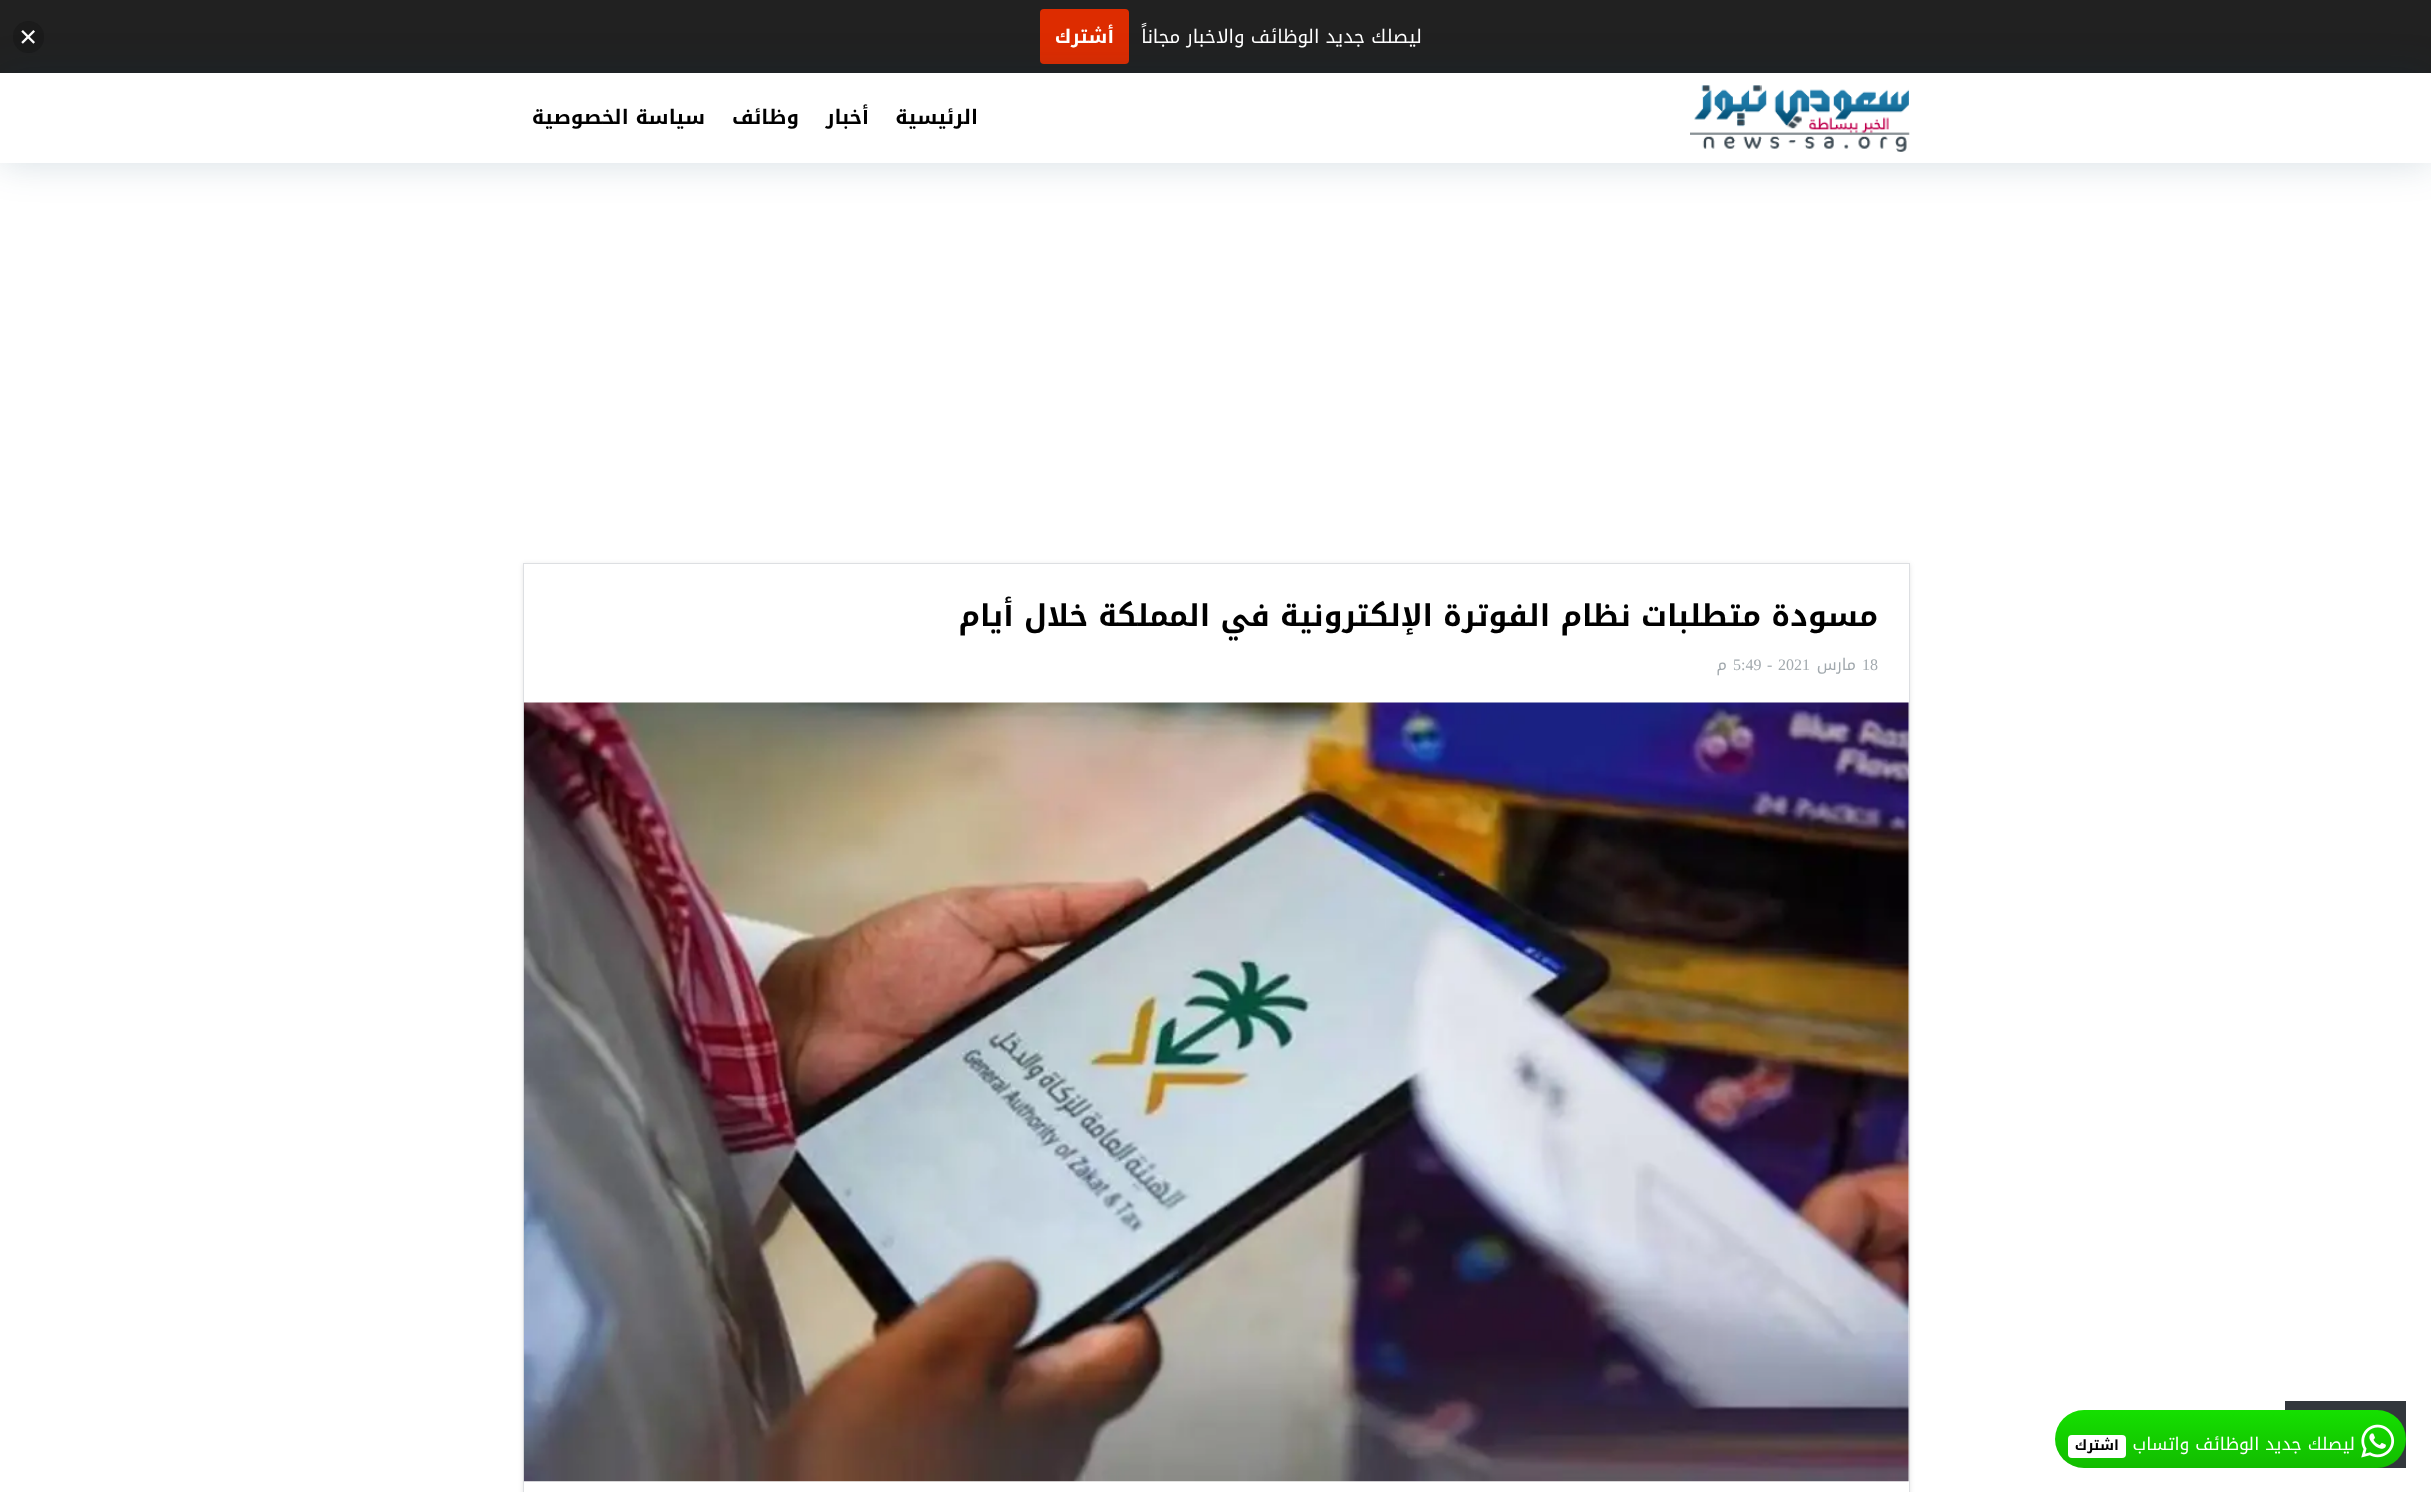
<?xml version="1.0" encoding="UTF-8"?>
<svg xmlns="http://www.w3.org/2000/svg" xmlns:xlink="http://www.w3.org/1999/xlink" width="2431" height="1492">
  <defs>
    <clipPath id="clip1"><path d="M 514 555 h 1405 v 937 h -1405 z m 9 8 h 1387 v 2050 h -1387 z" clip-rule="evenodd" /></clipPath>
    <linearGradient id="g1" gradientUnits="userSpaceOnUse" x1="2231" y1="1410" x2="2231" y2="1468"><stop offset="0" stop-color="#15e000" /><stop offset="1" stop-color="#12bc00" /></linearGradient>
  </defs>
  <rect width="100%" height="100%" fill="#ffffff" />
  <rect width="2431" height="73" fill="#212121" />
  <rect x="1040" y="9" width="89" height="55" rx="4" fill="#dd2c00" />
  <rect x="13" y="21" width="31" height="32" rx="15.5" fill="#1b1b1b" />
  <image x="21" y="30" width="14" height="14" xlink:href="image1.png" />
  <rect y="73" width="2431" height="90" fill="#073354" fill-opacity="0.17" filter="blur(19px)" />
  <rect y="73" width="2431" height="90" fill="#ffffff" />
  <image x="1690" y="85" width="220" height="67" xlink:href="image2.png" />
  <g clip-path="url(#clip1)">
    <rect x="523" y="564" width="1387" height="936" fill="#000000" fill-opacity="0.1" filter="blur(2.5px)" />
  </g>
  <rect x="523.5" y="563.5" width="1386" height="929" fill="none" stroke="#dddfe2" />
  <image x="523" y="702" width="1386" height="780" xlink:href="image3.png" />
  <rect x="2285" y="1401" width="121" height="67" fill="#32373c" />
  <rect x="2055" y="1410" width="351" height="58" rx="29" fill="url(#g1)" />
  <image x="2361" y="1424" width="34" height="34" xlink:href="image4.png" />
  <rect x="2068" y="1435" width="58" height="23" rx="4" fill="#ffffff" />
  <text x="1422" y="43" style="font-family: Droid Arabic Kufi; font-size: 18.75px; direction: rtl; fill: #ffffff">ليصلك جديد الوظائف والاخبار مجاناً</text>
  <text x="1114" y="43" style="font-family: Droid Arabic Kufi; font-size: 18.75px; font-weight: bold; direction: rtl; fill: #ffffff">أشترك</text>
  <text x="978" y="124" style="font-family: Droid Arabic Kufi; font-size: 20px; font-weight: bold; direction: rtl; fill: #000000">الرئيسية</text>
  <text x="869" y="124" style="font-family: Droid Arabic Kufi; font-size: 20px; font-weight: bold; direction: rtl; fill: #000000">أخبار</text>
  <text x="799" y="124" style="font-family: Droid Arabic Kufi; font-size: 20px; font-weight: bold; direction: rtl; fill: #000000">وظائف</text>
  <text x="705" y="124" style="font-family: Droid Arabic Kufi; font-size: 20px; font-weight: bold; direction: rtl; fill: #000000">سياسة الخصوصية</text>
  <text x="1878" y="626" style="font-family: Droid Arabic Kufi; font-size: 30px; font-weight: bold; direction: rtl; fill: #000000">مسودة متطلبات نظام الفوترة الإلكترونية في المملكة خلال أيام</text>
  <text x="1862" y="670" style="font-family: Liberation Serif; font-size: 16px; fill: #a2a9ae">18</text>
  <text x="1856" y="670" style="font-family: Droid Arabic Kufi; font-size: 16px; direction: rtl; fill: #a2a9ae">مارس</text>
  <text x="1778" y="670" style="font-family: Liberation Serif; font-size: 16px; fill: #a2a9ae">2021</text>
  <text x="1767" y="670" style="font-family: Liberation Serif; font-size: 16px; fill: #a2a9ae">-</text>
  <text x="1733" y="670" style="font-family: Liberation Serif; font-size: 16px; fill: #a2a9ae">5:49</text>
  <text x="1727" y="670" style="font-family: Droid Arabic Kufi; font-size: 16px; direction: rtl; fill: #a2a9ae">م</text>
  <text x="2355" y="1450" style="font-family: Droid Arabic Kufi; font-size: 17.5px; direction: rtl; fill: #ffffff">ليصلك جديد الوظائف واتساب</text>
  <text x="2119" y="1450" style="font-family: Droid Arabic Kufi; font-size: 14px; font-weight: bold; direction: rtl; fill: #000000">اشترك</text>
</svg>
